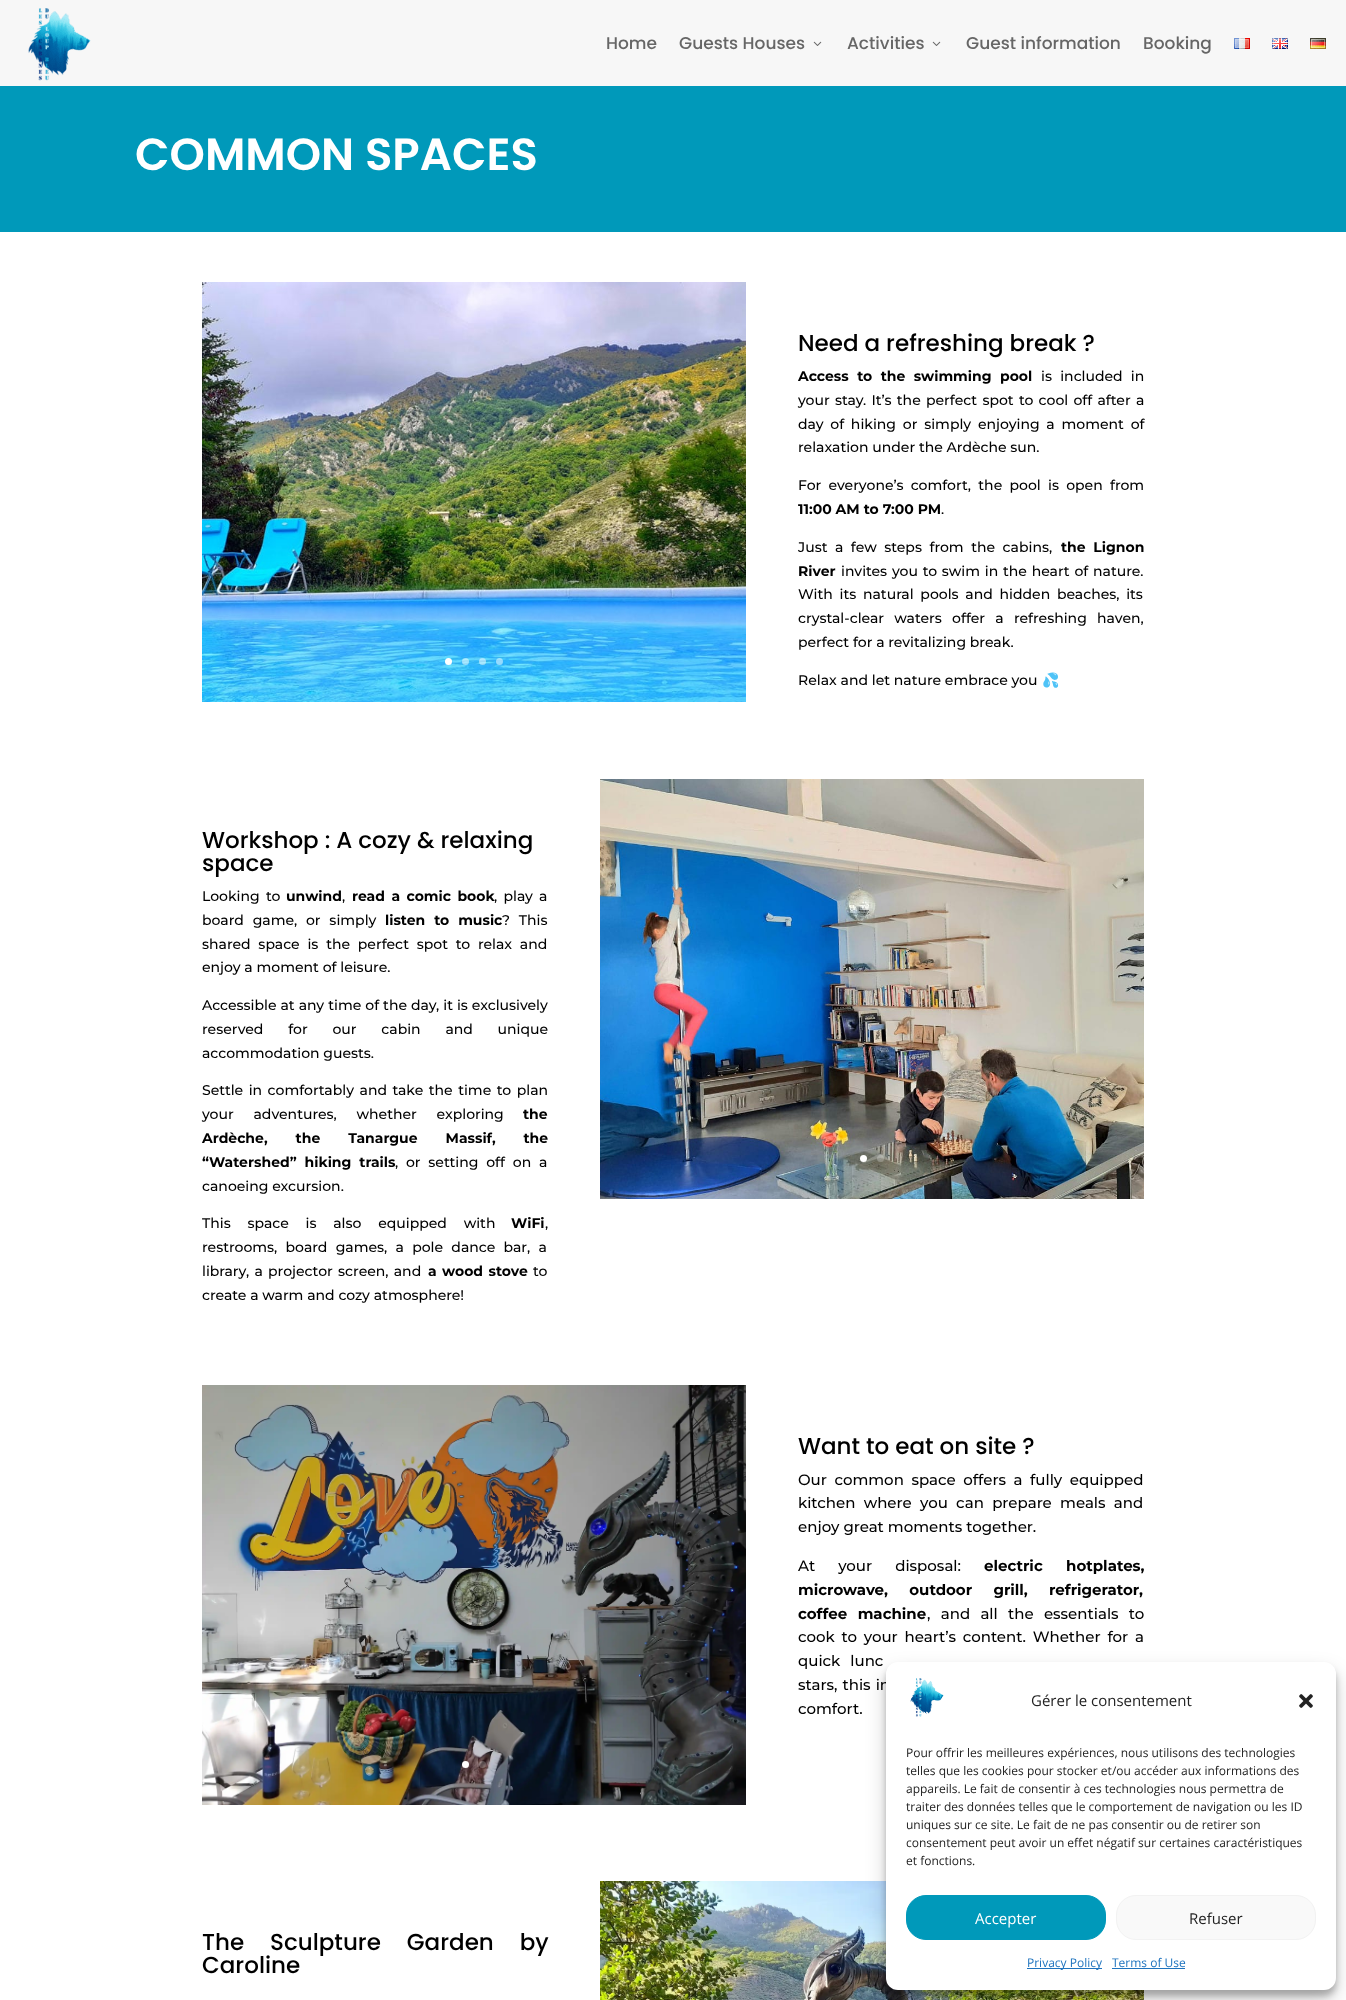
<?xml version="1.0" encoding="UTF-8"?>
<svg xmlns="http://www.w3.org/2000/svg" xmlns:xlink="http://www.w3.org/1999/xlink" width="1346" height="2000">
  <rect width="100%" height="100%" fill="#ffffff" />
  <rect width="1346" height="86" fill="#f7f7f7" />
  <image x="28" y="8" width="63" height="73" xlink:href="image1.png" />
  <image x="813" y="41" width="9" height="5" xlink:href="image2.png" />
  <image x="932" y="41" width="9" height="5" xlink:href="image2.png" />
  <image x="1234" y="38" width="16" height="11" xlink:href="image3.png" />
  <image x="1272" y="38" width="16" height="11" xlink:href="image4.png" />
  <image x="1310" y="38" width="16" height="11" xlink:href="image5.png" />
  <rect y="86" width="1346" height="146" fill="#0099ba" />
  <image x="202" y="282" width="544" height="420" xlink:href="image6.png" />
  <circle cx="448.5" cy="661.5" r="3.5" fill="#ffffff" />
  <circle cx="465.5" cy="661.5" r="3.5" fill="#ffffff" fill-opacity="0.5" />
  <circle cx="482.5" cy="661.5" r="3.5" fill="#ffffff" fill-opacity="0.5" />
  <circle cx="499.5" cy="661.5" r="3.5" fill="#ffffff" fill-opacity="0.5" />
  <image x="600" y="779" width="544" height="420" xlink:href="image7.png" />
  <circle cx="863.5" cy="1158.5" r="3.5" fill="#ffffff" />
  <circle cx="880.5" cy="1158.5" r="3.5" fill="#ffffff" fill-opacity="0.25" />
  <image x="202" y="1385" width="544" height="420" xlink:href="image8.png" />
  <circle cx="465.5" cy="1764.5" r="3.5" fill="#ffffff" />
  <circle cx="482.5" cy="1764.5" r="3.5" fill="#ffffff" fill-opacity="0.25" />
  <image x="600" y="1881" width="544" height="119" xlink:href="image9.png" />
  <rect x="886" y="1668" width="450" height="328" rx="12" fill="#000000" fill-opacity="0.23" filter="blur(3px)" />
  <rect x="886" y="1672" width="450" height="328" rx="12" fill="#000000" fill-opacity="0.19" filter="blur(10px)" />
  <text x="606" y="49" style="font-family: Poppins; font-size: 17px; font-weight: 500; fill: #666666">Home</text>
  <text x="679" y="49" style="font-family: Poppins; font-size: 17px; font-weight: 500; fill: #666666">Guests Houses</text>
  <text x="847" y="49" style="font-family: Poppins; font-size: 17px; font-weight: 500; fill: #666666">Activities</text>
  <text x="966" y="49" style="font-family: Poppins; font-size: 17px; font-weight: 500; fill: #666666">Guest information</text>
  <text x="1143" y="49" style="font-family: Poppins; font-size: 17px; font-weight: 500; fill: #666666">Booking</text>
  <text x="135" y="170" style="font-family: Poppins; font-size: 45px; font-weight: 600; fill: #ffffff">COMMON SPACES</text>
  <text x="798" y="351" style="font-family: Poppins; font-size: 23px; font-weight: 500; fill: #000000">Need a refreshing break ?</text>
  <text x="798" y="381" word-spacing="4.5" style="font-family: Montserrat; font-size: 14px; font-weight: 100; fill: #000000">Access to the swimming pool</text>
  <text x="1041" y="381" word-spacing="4.5" style="font-family: 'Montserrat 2'; font-size: 14px; font-weight: 100; fill: #000000">is included in</text>
  <text x="798" y="405" word-spacing="1.5" style="font-family: 'Montserrat 2'; font-size: 14px; font-weight: 100; fill: #000000">your stay. It’s the perfect spot to cool off after a</text>
  <text x="798" y="429" word-spacing="3" style="font-family: 'Montserrat 2'; font-size: 14px; font-weight: 100; fill: #000000">day of hiking or simply enjoying a moment of</text>
  <text x="798" y="452" style="font-family: 'Montserrat 2'; font-size: 14px; font-weight: 100; fill: #000000">relaxation under the Ardèche sun.</text>
  <text x="798" y="490" word-spacing="3.5" style="font-family: 'Montserrat 2'; font-size: 14px; font-weight: 100; fill: #000000">For everyone’s comfort, the pool is open from</text>
  <text x="798" y="514" style="font-family: Montserrat; font-size: 14px; font-weight: 100; fill: #000000">11:00 AM to 7:00 PM</text>
  <text x="941" y="514" style="font-family: 'Montserrat 2'; font-size: 14px; font-weight: 100; fill: #000000">.</text>
  <text x="798" y="552" word-spacing="3.75" style="font-family: 'Montserrat 2'; font-size: 14px; font-weight: 100; fill: #000000">Just a few steps from the cabins,</text>
  <text x="1061" y="552" word-spacing="3.75" style="font-family: Montserrat; font-size: 14px; font-weight: 100; fill: #000000">the Lignon</text>
  <text x="798" y="576" style="font-family: Montserrat; font-size: 14px; font-weight: 100; fill: #000000">River</text>
  <text x="841" y="576" word-spacing="1" style="font-family: 'Montserrat 2'; font-size: 14px; font-weight: 100; fill: #000000">invites you to swim in the heart of nature.</text>
  <text x="798" y="599" word-spacing="3" style="font-family: 'Montserrat 2'; font-size: 14px; font-weight: 100; fill: #000000">With its natural pools and hidden beaches, its</text>
  <text x="798" y="623" word-spacing="6.5" style="font-family: 'Montserrat 2'; font-size: 14px; font-weight: 100; fill: #000000">crystal-clear waters offer a refreshing haven,</text>
  <text x="798" y="647" style="font-family: 'Montserrat 2'; font-size: 14px; font-weight: 100; fill: #000000">perfect for a revitalizing break.</text>
  <text x="798" y="685" style="font-family: 'Montserrat 2'; font-size: 14px; font-weight: 100; fill: #000000">Relax and let nature embrace you</text>
  <text x="1042" y="685" style="font-family: Noto Color Emoji; font-size: 14px; fill: #000000">💦</text>
  <text x="202" y="848" style="font-family: Poppins; font-size: 23px; font-weight: 500; fill: #000000">Workshop : A cozy &amp; relaxing</text>
  <text x="202" y="871" style="font-family: Poppins; font-size: 23px; font-weight: 500; fill: #000000">space</text>
  <text x="202" y="901" word-spacing="2.5" style="font-family: 'Montserrat 2'; font-size: 14px; font-weight: 100; fill: #000000">Looking to</text>
  <text x="286" y="901" style="font-family: Montserrat; font-size: 14px; font-weight: 100; fill: #000000">unwind</text>
  <text x="342" y="901" style="font-family: 'Montserrat 2'; font-size: 14px; font-weight: 100; fill: #000000">,</text>
  <text x="352" y="901" word-spacing="2.5" style="font-family: Montserrat; font-size: 14px; font-weight: 100; fill: #000000">read a comic book</text>
  <text x="494" y="901" word-spacing="2.5" style="font-family: 'Montserrat 2'; font-size: 14px; font-weight: 100; fill: #000000">, play a</text>
  <text x="202" y="925" word-spacing="5" style="font-family: 'Montserrat 2'; font-size: 14px; font-weight: 100; fill: #000000">board game, or simply</text>
  <text x="385" y="925" word-spacing="5" style="font-family: Montserrat; font-size: 14px; font-weight: 100; fill: #000000">listen to music</text>
  <text x="502" y="925" word-spacing="5" style="font-family: 'Montserrat 2'; font-size: 14px; font-weight: 100; fill: #000000">? This</text>
  <text x="202" y="949" word-spacing="4" style="font-family: 'Montserrat 2'; font-size: 14px; font-weight: 100; fill: #000000">shared space is the perfect spot to relax and</text>
  <text x="202" y="972" style="font-family: 'Montserrat 2'; font-size: 14px; font-weight: 100; fill: #000000">enjoy a moment of leisure.</text>
  <text x="202" y="1010" word-spacing="0.25" style="font-family: 'Montserrat 2'; font-size: 14px; font-weight: 100; fill: #000000">Accessible at any time of the day, it is exclusively</text>
  <text x="202" y="1034" word-spacing="21" style="font-family: 'Montserrat 2'; font-size: 14px; font-weight: 100; fill: #000000">reserved for our cabin and unique</text>
  <text x="202" y="1058" style="font-family: 'Montserrat 2'; font-size: 14px; font-weight: 100; fill: #000000">accommodation guests.</text>
  <text x="202" y="1095" word-spacing="1.75" style="font-family: 'Montserrat 2'; font-size: 14px; font-weight: 100; fill: #000000">Settle in comfortably and take the time to plan</text>
  <text x="202" y="1119" word-spacing="16" style="font-family: 'Montserrat 2'; font-size: 14px; font-weight: 100; fill: #000000">your adventures, whether exploring</text>
  <text x="523" y="1119" style="font-family: Montserrat; font-size: 14px; font-weight: 100; fill: #000000">the</text>
  <text x="202" y="1143" word-spacing="24" style="font-family: Montserrat; font-size: 14px; font-weight: 100; fill: #000000">Ardèche, the Tanargue Massif, the</text>
  <text x="202" y="1167" word-spacing="4" style="font-family: Montserrat; font-size: 14px; font-weight: 100; fill: #000000">“Watershed” hiking trails</text>
  <text x="395" y="1167" word-spacing="4" style="font-family: 'Montserrat 2'; font-size: 14px; font-weight: 100; fill: #000000">, or setting off on a</text>
  <text x="202" y="1191" style="font-family: 'Montserrat 2'; font-size: 14px; font-weight: 100; fill: #000000">canoeing excursion.</text>
  <text x="202" y="1228" word-spacing="13" style="font-family: 'Montserrat 2'; font-size: 14px; font-weight: 100; fill: #000000">This space is also equipped with</text>
  <text x="511" y="1228" style="font-family: Montserrat; font-size: 14px; font-weight: 100; fill: #000000">WiFi</text>
  <text x="545" y="1228" style="font-family: 'Montserrat 2'; font-size: 14px; font-weight: 100; fill: #000000">,</text>
  <text x="202" y="1252" word-spacing="4.5" style="font-family: 'Montserrat 2'; font-size: 14px; font-weight: 100; fill: #000000">restrooms, board games, a pole dance bar, a</text>
  <text x="202" y="1276" word-spacing="1.5" style="font-family: 'Montserrat 2'; font-size: 14px; font-weight: 100; fill: #000000">library, a projector screen, and</text>
  <text x="428" y="1276" word-spacing="1.5" style="font-family: Montserrat; font-size: 14px; font-weight: 100; fill: #000000">a wood stove</text>
  <text x="533" y="1276" style="font-family: 'Montserrat 2'; font-size: 14px; font-weight: 100; fill: #000000">to</text>
  <text x="202" y="1300" style="font-family: 'Montserrat 2'; font-size: 14px; font-weight: 100; fill: #000000">create a warm and cozy atmosphere!</text>
  <text x="798" y="1454" style="font-family: Poppins; font-size: 23px; font-weight: 500; fill: #000000">Want to eat on site ?</text>
  <text x="798" y="1485" word-spacing="3.5" style="font-family: 'Montserrat 2'; font-size: 15px; font-weight: 100; fill: #000000">Our common space offers a fully equipped</text>
  <text x="798" y="1508" word-spacing="4.25" style="font-family: 'Montserrat 2'; font-size: 15px; font-weight: 100; fill: #000000">kitchen where you can prepare meals and</text>
  <text x="798" y="1532" style="font-family: 'Montserrat 2'; font-size: 15px; font-weight: 100; fill: #000000">enjoy great moments together.</text>
  <text x="798" y="1571" word-spacing="19" style="font-family: 'Montserrat 2'; font-size: 15px; font-weight: 100; fill: #000000">At your disposal:</text>
  <text x="984" y="1571" word-spacing="19" style="font-family: Montserrat; font-size: 15px; font-weight: 100; fill: #000000">electric hotplates,</text>
  <text x="798" y="1595" word-spacing="17" style="font-family: Montserrat; font-size: 15px; font-weight: 100; fill: #000000">microwave, outdoor grill, refrigerator,</text>
  <text x="798" y="1619" word-spacing="6.25" style="font-family: Montserrat; font-size: 15px; font-weight: 100; fill: #000000">coffee machine</text>
  <text x="927" y="1619" word-spacing="6.25" style="font-family: 'Montserrat 2'; font-size: 15px; font-weight: 100; fill: #000000">, and all the essentials to</text>
  <text x="798" y="1642" word-spacing="2.75" style="font-family: 'Montserrat 2'; font-size: 15px; font-weight: 100; fill: #000000">cook to your heart’s content. Whether for a</text>
  <text x="798" y="1666" word-spacing="6" style="font-family: 'Montserrat 2'; font-size: 15px; font-weight: 100; fill: #000000">quick lunc</text>
  <text x="798" y="1690" word-spacing="1" style="font-family: 'Montserrat 2'; font-size: 15px; font-weight: 100; fill: #000000">stars, this in</text>
  <text x="798" y="1714" style="font-family: 'Montserrat 2'; font-size: 15px; font-weight: 100; fill: #000000">comfort.</text>
  <text x="202" y="1950" word-spacing="20" style="font-family: Poppins; font-size: 23px; font-weight: 500; fill: #000000">The Sculpture Garden by</text>
  <text x="202" y="1973" style="font-family: Poppins; font-size: 23px; font-weight: 500; fill: #000000">Caroline</text>
  <rect x="886" y="1662" width="450" height="328" rx="12" fill="#ffffff" />
  <image x="910" y="1678" width="34" height="39" xlink:href="image10.png" />
  <text x="1031" y="1706" style="font-family: Open Sans; font-size: 15px; fill: #222222">Gérer le consentement</text>
  <image x="1299" y="1694" width="14" height="14" xlink:href="image11.png" />
  <text x="906" y="1757" style="font-family: Open Sans; font-size: 12px; fill: #222222">Pour offrir les meilleures expériences, nous utilisons des technologies</text>
  <text x="906" y="1775" style="font-family: Open Sans; font-size: 12px; fill: #222222">telles que les cookies pour stocker et/ou accéder aux informations des</text>
  <text x="906" y="1793" style="font-family: Open Sans; font-size: 12px; fill: #222222">appareils. Le fait de consentir à ces technologies nous permettra de</text>
  <text x="906" y="1811" style="font-family: Open Sans; font-size: 12px; fill: #222222">traiter des données telles que le comportement de navigation ou les ID</text>
  <text x="906" y="1829" style="font-family: Open Sans; font-size: 12px; fill: #222222">uniques sur ce site. Le fait de ne pas consentir ou de retirer son</text>
  <text x="906" y="1847" style="font-family: Open Sans; font-size: 12px; fill: #222222">consentement peut avoir un effet négatif sur certaines caractéristiques</text>
  <text x="906" y="1865" style="font-family: Open Sans; font-size: 12px; fill: #222222">et fonctions.</text>
  <rect x="906.5" y="1895.5" width="199" height="44" rx="19.5" fill="#0099ba" stroke="#0099ba" />
  <text x="975" y="1924" style="font-family: Open Sans; font-size: 15px; fill: #ffffff">Accepter</text>
  <rect x="1116.5" y="1895.5" width="199" height="44" rx="19.5" fill="#f9f9f9" stroke="#f2f2f2" />
  <text x="1189" y="1924" style="font-family: Open Sans; font-size: 15px; fill: #222222">Refuser</text>
  <rect x="1027" y="1968" width="75" height="1" fill="#1e73be" />
  <text x="1027" y="1967" style="font-family: Open Sans; font-size: 12px; fill: #1e73be">Privacy Policy</text>
  <text x="1112" y="1967" style="font-family: Open Sans; font-size: 12px; fill: #1e73be">Terms of Use</text>
  <rect x="1112" y="1968" width="73" height="1" fill="#1e73be" />
</svg>
